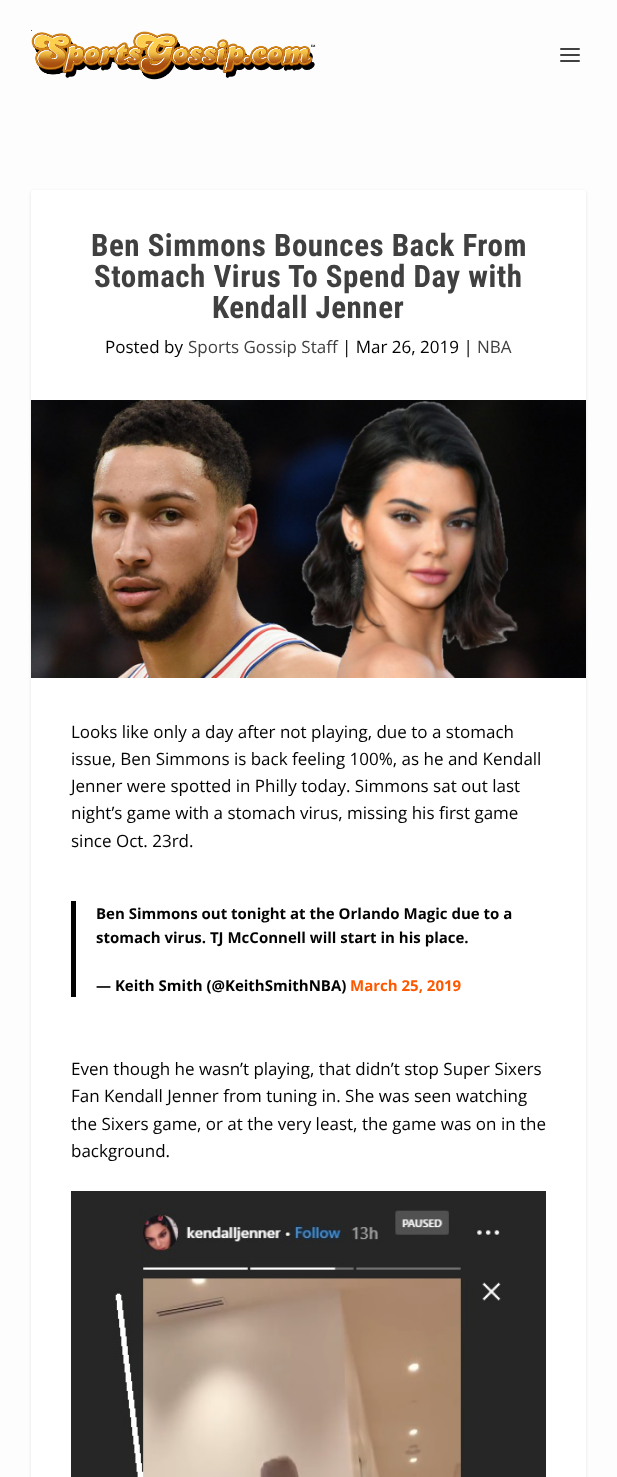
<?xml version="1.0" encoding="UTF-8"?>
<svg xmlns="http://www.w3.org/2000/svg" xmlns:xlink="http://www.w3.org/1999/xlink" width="617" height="1477">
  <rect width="100%" height="100%" fill="#fdfdfe" />
  <image x="31" y="30" width="285" height="50" xlink:href="image1.png" />
  <rect x="560" y="48" width="20" height="2" rx="1" fill="#404040" />
  <rect x="560" y="54" width="20" height="2" rx="1" fill="#404040" />
  <rect x="560" y="60" width="20" height="2" rx="1" fill="#404040" />
  <rect x="31" y="191" width="555" height="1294" rx="3" fill="#000000" fill-opacity="0.1" filter="blur(1.5px)" />
  <rect x="31" y="190" width="555" height="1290" rx="3" fill="#ffffff" />
  <image x="31" y="400" width="555" height="278" xlink:href="image2.png" />
  <rect x="71" y="901" width="5" height="96" fill="#030303" />
  <image x="71" y="1191" width="475" height="286" xlink:href="image3.png" />
  <text x="91" y="256" style="font-family: Roboto Condensed; font-size: 31px; font-weight: bold; letter-spacing: 0.5px; fill: #404040">Ben Simmons Bounces Back From</text>
  <text x="94" y="287" style="font-family: Roboto Condensed; font-size: 31px; font-weight: bold; letter-spacing: 0.5px; fill: #404040">Stomach Virus To Spend Day with</text>
  <text x="212" y="318" style="font-family: Roboto Condensed; font-size: 31px; font-weight: bold; letter-spacing: 0.5px; fill: #404040">Kendall Jenner</text>
  <text x="105" y="353" style="font-family: Open Sans; font-size: 17px; fill: #030303">Posted by</text>
  <text x="188" y="353" style="font-family: Open Sans; font-size: 17px; fill: #404040">Sports Gossip Staff</text>
  <text x="342" y="353" style="font-family: Open Sans; font-size: 17px; fill: #030303">| Mar 26, 2019 |</text>
  <text x="477" y="353" style="font-family: Open Sans; font-size: 17px; fill: #404040">NBA</text>
  <text x="71" y="738" style="font-family: Open Sans; font-size: 17px; fill: #030303">Looks like only a day after not playing, due to a stomach</text>
  <text x="71" y="765" style="font-family: Open Sans; font-size: 17px; fill: #030303">issue, Ben Simmons is back feeling 100%, as he and Kendall</text>
  <text x="71" y="792" style="font-family: Open Sans; font-size: 17px; fill: #030303">Jenner were spotted in Philly today. Simmons sat out last</text>
  <text x="71" y="819" style="font-family: Open Sans; font-size: 17px; fill: #030303">night’s game with a stomach virus, missing his first game</text>
  <text x="71" y="847" style="font-family: Open Sans; font-size: 17px; fill: #030303">since Oct. 23rd.</text>
  <text x="96" y="919" style="font-family: Open Sans; font-size: 15px; font-weight: bold; fill: #030303">Ben Simmons out tonight at the Orlando Magic due to a</text>
  <text x="96" y="943" style="font-family: Open Sans; font-size: 15px; font-weight: bold; fill: #030303">stomach virus. TJ McConnell will start in his place.</text>
  <text x="96" y="991" style="font-family: Open Sans; font-size: 15px; font-weight: bold; fill: #030303">— Keith Smith (@KeithSmithNBA)</text>
  <text x="350" y="991" style="font-family: Open Sans; font-size: 15px; font-weight: bold; fill: #ff5900">March 25, 2019</text>
  <text x="71" y="1075" style="font-family: Open Sans; font-size: 17px; fill: #030303">Even though he wasn’t playing, that didn’t stop Super Sixers</text>
  <text x="71" y="1102" style="font-family: Open Sans; font-size: 17px; fill: #030303">Fan Kendall Jenner from tuning in. She was seen watching</text>
  <text x="71" y="1130" style="font-family: Open Sans; font-size: 17px; fill: #030303">the Sixers game, or at the very least, the game was on in the</text>
  <text x="71" y="1157" style="font-family: Open Sans; font-size: 17px; fill: #030303">background.</text>
</svg>
